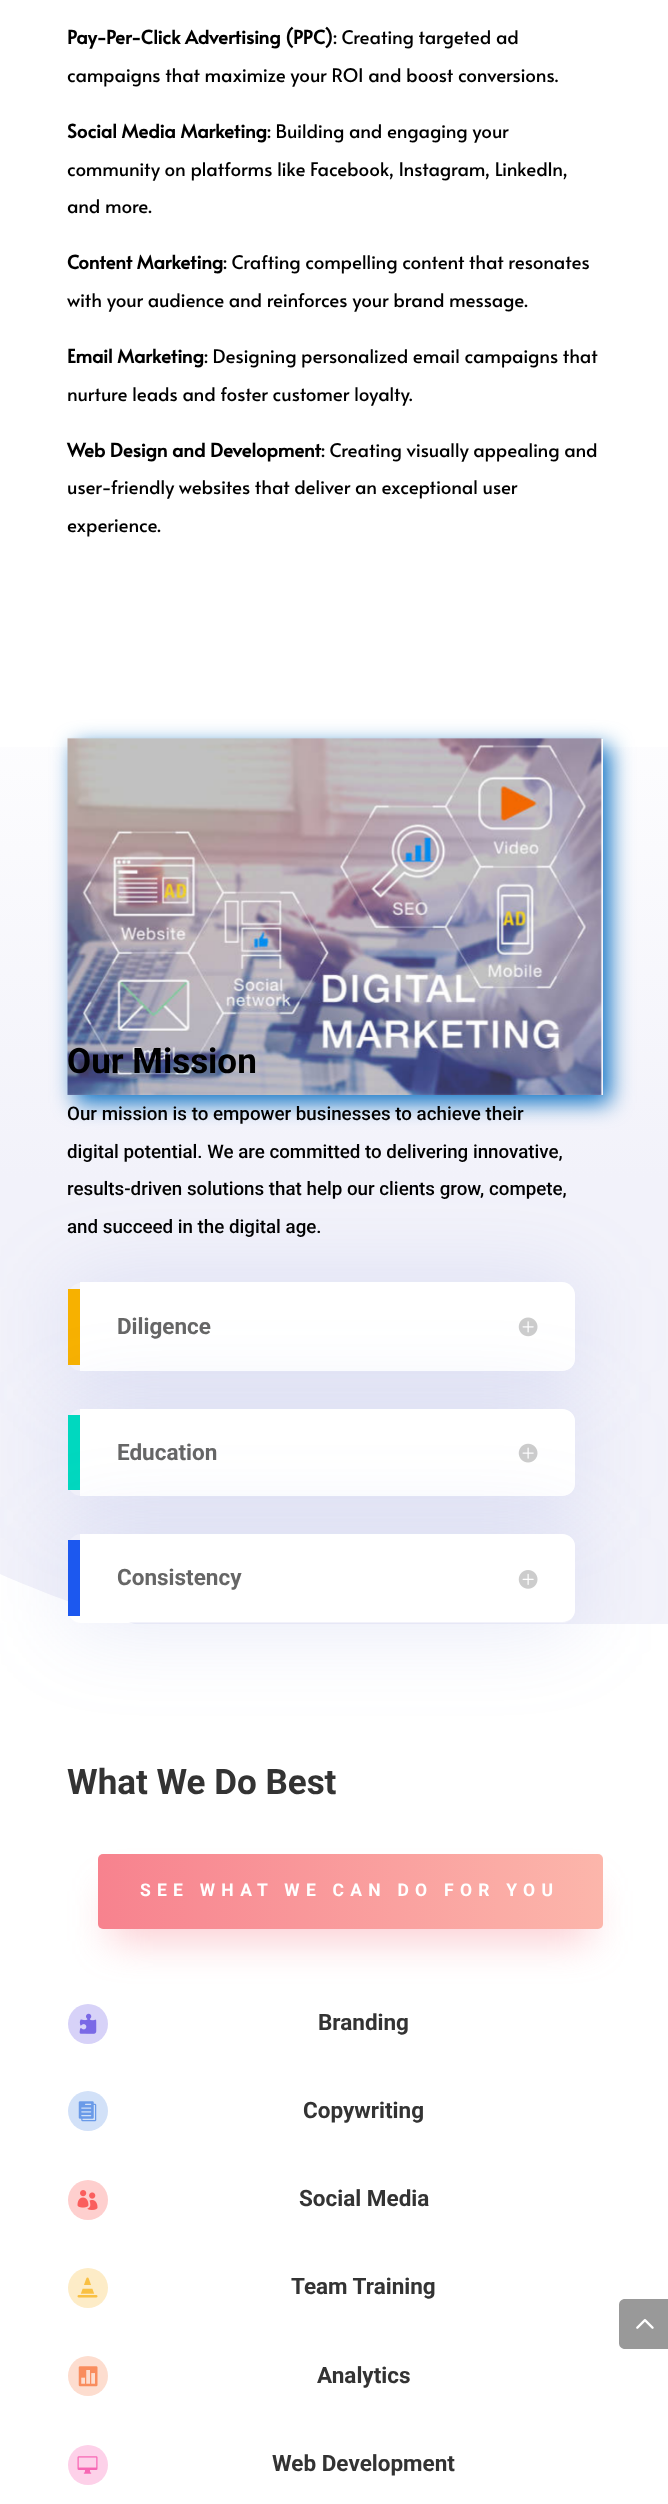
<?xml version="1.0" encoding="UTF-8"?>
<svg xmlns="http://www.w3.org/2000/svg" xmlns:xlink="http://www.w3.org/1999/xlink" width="668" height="2504">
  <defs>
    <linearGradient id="g1" gradientUnits="userSpaceOnUse" x1="334" y1="644" x2="334" y2="1711"><stop offset="0" stop-color="#ffffff" /><stop offset="0.5" stop-color="#f2f2fa" /></linearGradient>
    <clipPath id="clip1"><path d="M 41 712 h 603 v 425 h -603 z m 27 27 h 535 v 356 h -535 z" clip-rule="evenodd" /></clipPath>
    <clipPath id="clip2"><path d="M 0 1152 h 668 v 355 h -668 z m 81 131 h 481 c 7 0 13 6 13 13 v 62 c 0 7 -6 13 -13 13 h -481 c -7 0 -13 -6 -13 -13 v -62 c 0 -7 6 -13 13 -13 z" clip-rule="evenodd" /></clipPath>
    <clipPath id="clip3"><path d="M 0 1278 h 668 v 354 h -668 z m 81 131 h 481 c 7 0 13 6 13 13 v 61 c 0 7 -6 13 -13 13 h -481 c -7 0 -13 -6 -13 -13 v -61 c 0 -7 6 -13 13 -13 z" clip-rule="evenodd" /></clipPath>
    <clipPath id="clip4"><path d="M 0 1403 h 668 v 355 h -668 z m 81 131 h 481 c 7 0 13 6 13 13 v 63 c 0 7 -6 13 -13 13 h -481 c -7 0 -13 -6 -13 -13 v -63 c 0 -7 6 -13 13 -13 z" clip-rule="evenodd" /></clipPath>
    <linearGradient id="g2" gradientUnits="userSpaceOnUse" x1="98" y1="1891" x2="603" y2="1891"><stop offset="0" stop-color="#f7828e" /><stop offset="1" stop-color="#fcb6ab" /></linearGradient>
  </defs>
  <rect width="100%" height="100%" fill="#ffffff" />
  <rect y="747" width="668" height="877" fill="url(#g1)" />
  <g clip-path="url(#clip1)">
    <rect x="75" y="746" width="535" height="357" fill="#0c71c3" filter="blur(11px)" />
  </g>
  <image x="67" y="737" width="535" height="358" xlink:href="image1.png" />
  <g clip-path="url(#clip2)">
    <rect x="68" y="1285" width="507" height="89" rx="13" fill="#6e82d0" fill-opacity="0.18" filter="blur(44px)" />
  </g>
  <path d="M 80 1282 h 482 c 7 0 13 6 13 13 v 64 c 0 7 -6 12 -13 12 h -482 z" fill="#ffffff" />
  <rect x="68" y="1289" width="12" height="76" fill="#f7b100" />
  <image x="518" y="1317" width="20" height="20" xlink:href="image2.png" />
  <path d="M 0 1711 h 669 c -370 0 -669 -137 -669 -137 z" fill="#ffffff" />
  <g clip-path="url(#clip3)">
    <rect x="68" y="1411" width="507" height="88" rx="13" fill="#6e82d0" fill-opacity="0.18" filter="blur(44px)" />
  </g>
  <path d="M 80 1409 h 482 c 7 0 13 5 13 12 v 63 c 0 7 -6 12 -13 12 h -482 z" fill="#ffffff" />
  <rect x="68" y="1415" width="12" height="75" fill="#00d8bf" />
  <image x="518" y="1443" width="20" height="20" xlink:href="image3.png" />
  <g clip-path="url(#clip4)">
    <rect x="68" y="1536" width="507" height="89" rx="13" fill="#6e82d0" fill-opacity="0.18" filter="blur(44px)" />
  </g>
  <path d="M 80 1534 h 482 c 7 0 13 5 13 12 v 64 c 0 7 -6 12 -13 12 h -482 z" fill="#ffffff" />
  <rect x="68" y="1540" width="12" height="76" fill="#1c58ef" />
  <image x="518" y="1570" width="20" height="19" xlink:href="image4.png" />
  <rect x="110" y="1891" width="480" height="50" fill="#f7828e" fill-opacity="0.4" filter="blur(19px)" />
  <rect x="98" y="1854" width="505" height="75" rx="5" fill="url(#g2)" />
  <circle cx="88" cy="2024" r="20" fill="#d7d2f8" />
  <image x="79" y="2013" width="18" height="21" xlink:href="image5.png" />
  <circle cx="88" cy="2111" r="20" fill="#d2e1f8" />
  <image x="78" y="2101" width="19" height="21" xlink:href="image6.png" />
  <circle cx="88" cy="2200" r="20" fill="#fecfce" />
  <image x="77" y="2190" width="21" height="20" xlink:href="image7.png" />
  <circle cx="88" cy="2288" r="20" fill="#fdecc7" />
  <image x="77" y="2277" width="21" height="21" xlink:href="image8.png" />
  <circle cx="88" cy="2376" r="20" fill="#fdddcf" />
  <image x="78" y="2366" width="20" height="21" xlink:href="image9.png" />
  <circle cx="88" cy="2465" r="20" fill="#fdd1e9" />
  <image x="77" y="2456" width="21" height="18" xlink:href="image10.png" />
  <path d="M 625 2299 h 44 v 50 h -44 c -3.5 0 -6 -2.5 -6 -6 v -38 c 0 -3.5 2.5 -6 6 -6 z" fill="#999999" />
  <image x="636" y="2319" width="18" height="10" xlink:href="image11.png" />
  <text x="67" y="44" style="font-family: Alata; font-size: 18.75px; font-weight: bold; fill: #000000">Pay-Per-Click Advertising (PPC)</text>
  <text x="333" y="44" style="font-family: Alata; font-size: 18.75px; fill: #000000">: Creating targeted ad</text>
  <text x="67" y="82" style="font-family: Alata; font-size: 18.75px; fill: #000000">campaigns that maximize your ROI and boost conversions.</text>
  <text x="67" y="138" style="font-family: Alata; font-size: 18.75px; font-weight: bold; fill: #000000">Social Media Marketing</text>
  <text x="267" y="138" style="font-family: Alata; font-size: 18.75px; fill: #000000">: Building and engaging your</text>
  <text x="67" y="176" style="font-family: Alata; font-size: 18.75px; fill: #000000">community on platforms like Facebook, Instagram, LinkedIn,</text>
  <text x="67" y="213" style="font-family: Alata; font-size: 18.75px; fill: #000000">and more.</text>
  <text x="67" y="269" style="font-family: Alata; font-size: 18.75px; font-weight: bold; fill: #000000">Content Marketing</text>
  <text x="223" y="269" style="font-family: Alata; font-size: 18.75px; fill: #000000">: Crafting compelling content that resonates</text>
  <text x="67" y="307" style="font-family: Alata; font-size: 18.75px; fill: #000000">with your audience and reinforces your brand message.</text>
  <text x="67" y="363" style="font-family: Alata; font-size: 18.75px; font-weight: bold; fill: #000000">Email Marketing</text>
  <text x="204" y="363" style="font-family: Alata; font-size: 18.75px; fill: #000000">: Designing personalized email campaigns that</text>
  <text x="67" y="401" style="font-family: Alata; font-size: 18.75px; fill: #000000">nurture leads and foster customer loyalty.</text>
  <text x="67" y="457" style="font-family: Alata; font-size: 18.75px; font-weight: bold; fill: #000000">Web Design and Development</text>
  <text x="321" y="457" style="font-family: Alata; font-size: 18.75px; fill: #000000">: Creating visually appealing and</text>
  <text x="67" y="494" style="font-family: Alata; font-size: 18.75px; fill: #000000">user-friendly websites that deliver an exceptional user</text>
  <text x="67" y="532" style="font-family: Alata; font-size: 18.75px; fill: #000000">experience.</text>
  <text x="67" y="1073" style="font-family: Roboto; font-size: 35px; font-weight: bold; fill: #000000">Our Mission</text>
  <text x="67" y="1120" style="font-family: Roboto; font-size: 18.75px; font-weight: 500; fill: #000000">Our mission is to empower businesses to achieve their</text>
  <text x="67" y="1158" style="font-family: Roboto; font-size: 18.75px; font-weight: 500; fill: #000000">digital potential. We are committed to delivering innovative,</text>
  <text x="67" y="1195" style="font-family: Roboto; font-size: 18.75px; font-weight: 500; fill: #000000">results-driven solutions that help our clients grow, compete,</text>
  <text x="67" y="1233" style="font-family: Roboto; font-size: 18.75px; font-weight: 500; fill: #000000">and succeed in the digital age.</text>
  <text x="117" y="1334" style="font-family: Roboto; font-size: 22.5px; font-weight: bold; fill: #666666">Diligence</text>
  <text x="117" y="1460" style="font-family: Roboto; font-size: 22.5px; font-weight: bold; fill: #666666">Education</text>
  <text x="117" y="1585" style="font-family: Roboto; font-size: 22.5px; font-weight: bold; fill: #666666">Consistency</text>
  <text x="67" y="1794" style="font-family: Roboto; font-size: 35px; font-weight: bold; fill: #333333">What We Do Best</text>
  <text x="140" y="1896" style="font-family: Roboto; font-size: 17.5px; font-weight: bold; letter-spacing: 6.25px; fill: #ffffff">SEE WHAT WE CAN DO FOR YOU</text>
  <text x="318" y="2030" style="font-family: Roboto; font-size: 22.5px; font-weight: bold; fill: #333333">Branding</text>
  <text x="303" y="2118" style="font-family: Roboto; font-size: 22.5px; font-weight: bold; fill: #333333">Copywriting</text>
  <text x="299" y="2206" style="font-family: Roboto; font-size: 22.5px; font-weight: bold; fill: #333333">Social Media</text>
  <text x="291" y="2294" style="font-family: Roboto; font-size: 22.5px; font-weight: bold; fill: #333333">Team Training</text>
  <text x="317" y="2383" style="font-family: Roboto; font-size: 22.5px; font-weight: bold; fill: #333333">Analytics</text>
  <text x="272" y="2471" style="font-family: Roboto; font-size: 22.5px; font-weight: bold; fill: #333333">Web Development</text>
</svg>
